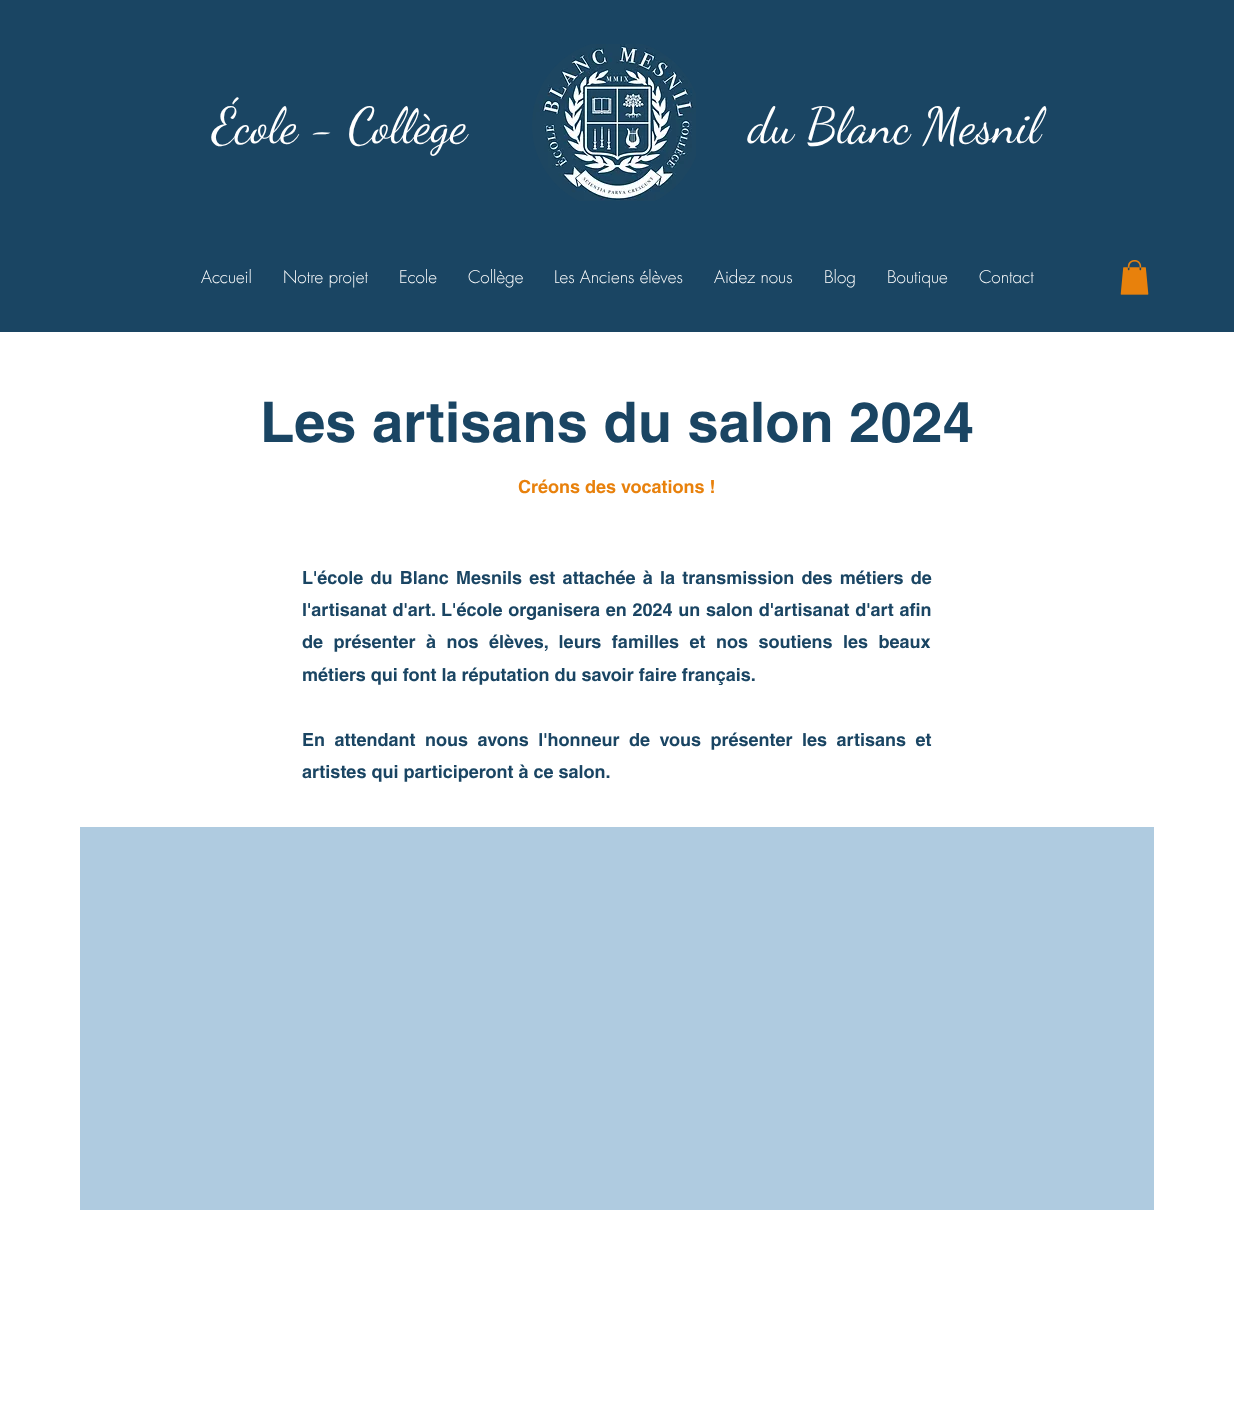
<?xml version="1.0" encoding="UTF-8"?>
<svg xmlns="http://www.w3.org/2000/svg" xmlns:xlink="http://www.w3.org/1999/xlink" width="1234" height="1417">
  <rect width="100%" height="100%" fill="#1a4563" />
  <image x="532" y="44" width="164" height="157" xlink:href="image1.png" />
  <image x="1120" y="260" width="29" height="35" xlink:href="image2.png" />
  <rect y="332" width="1234" height="1085" fill="#ffffff" />
  <rect x="80" y="827" width="1074" height="383" fill="#afcbe0" />
  <text x="212" y="142" style="font-family: Dancing Script; font-size: 50px; fill: #ffffff">École - Collège</text>
  <text x="748" y="142" style="font-family: Dancing Script; font-size: 50px; fill: #ffffff">du Blanc Mesnil</text>
  <text x="201" y="283" style="font-family: futura; font-size: 17px; font-weight: 300; fill: #ffffff">Accueil</text>
  <text x="283" y="283" style="font-family: futura; font-size: 17px; font-weight: 300; fill: #ffffff">Notre projet</text>
  <text x="399" y="283" style="font-family: futura; font-size: 17px; font-weight: 300; fill: #ffffff">Ecole</text>
  <text x="468" y="283" style="font-family: futura; font-size: 17px; font-weight: 300; fill: #ffffff">Collège</text>
  <text x="554" y="283" style="font-family: futura; font-size: 17px; font-weight: 300; fill: #ffffff">Les Anciens élèves</text>
  <text x="714" y="283" style="font-family: futura; font-size: 17px; font-weight: 300; fill: #ffffff">Aidez nous</text>
  <text x="824" y="283" style="font-family: futura; font-size: 17px; font-weight: 300; fill: #ffffff">Blog</text>
  <text x="887" y="283" style="font-family: futura; font-size: 17px; font-weight: 300; fill: #ffffff">Boutique</text>
  <text x="979" y="283" style="font-family: futura; font-size: 17px; font-weight: 300; fill: #ffffff">Contact</text>
  <text x="260" y="442" style="font-family: helvetica; font-size: 56px; font-weight: bold; fill: #1a4563">Les artisans du salon 2024</text>
  <text x="518" y="493" style="font-family: helvetica; font-size: 18px; font-weight: bold; fill: #e8810c">Créons des vocations !</text>
  <text x="302" y="584" word-spacing="2.25" style="font-family: helvetica; font-size: 18px; font-weight: bold; fill: #1a4563">L'école du Blanc Mesnils est attachée à la transmission des métiers de</text>
  <text x="302" y="616" word-spacing="0.75" style="font-family: helvetica; font-size: 18px; font-weight: bold; fill: #1a4563">l'artisanat d'art. L'école organisera en 2024 un salon d'artisanat d'art afin</text>
  <text x="302" y="648" word-spacing="5.5" style="font-family: helvetica; font-size: 18px; font-weight: bold; fill: #1a4563">de présenter à nos élèves, leurs familles et nos soutiens les beaux</text>
  <text x="302" y="681" style="font-family: helvetica; font-size: 18px; font-weight: bold; fill: #1a4563">métiers qui font la réputation du savoir faire français.</text>
  <text x="302" y="746" word-spacing="4.5" style="font-family: helvetica; font-size: 18px; font-weight: bold; fill: #1a4563">En attendant nous avons l'honneur de vous présenter les artisans et</text>
  <text x="302" y="778" style="font-family: helvetica; font-size: 18px; font-weight: bold; fill: #1a4563">artistes qui participeront à ce salon.</text>
</svg>
